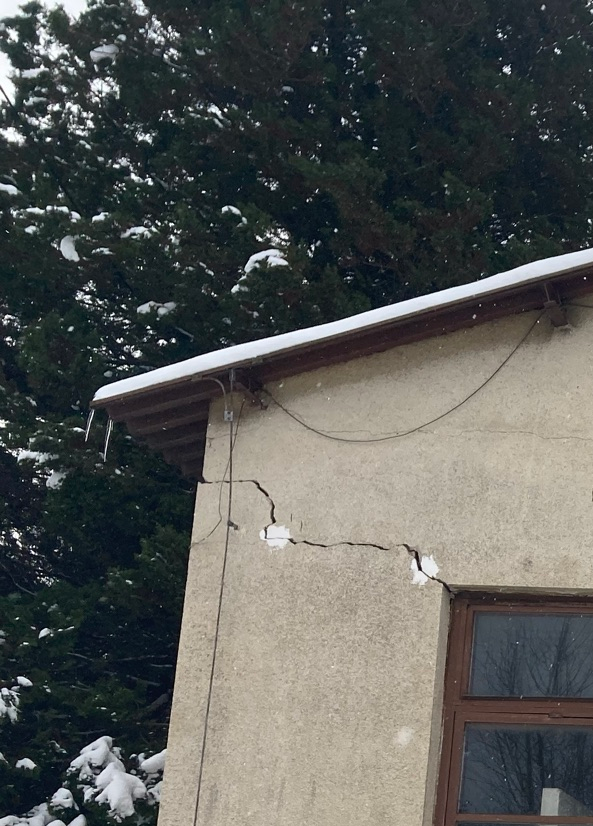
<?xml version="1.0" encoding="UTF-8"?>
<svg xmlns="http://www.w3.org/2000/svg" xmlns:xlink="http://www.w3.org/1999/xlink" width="593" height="826">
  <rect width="100%" height="100%" fill="#ffffff" />
  <image x="0" y="0" width="593" height="826" xlink:href="image1.png" />
</svg>
